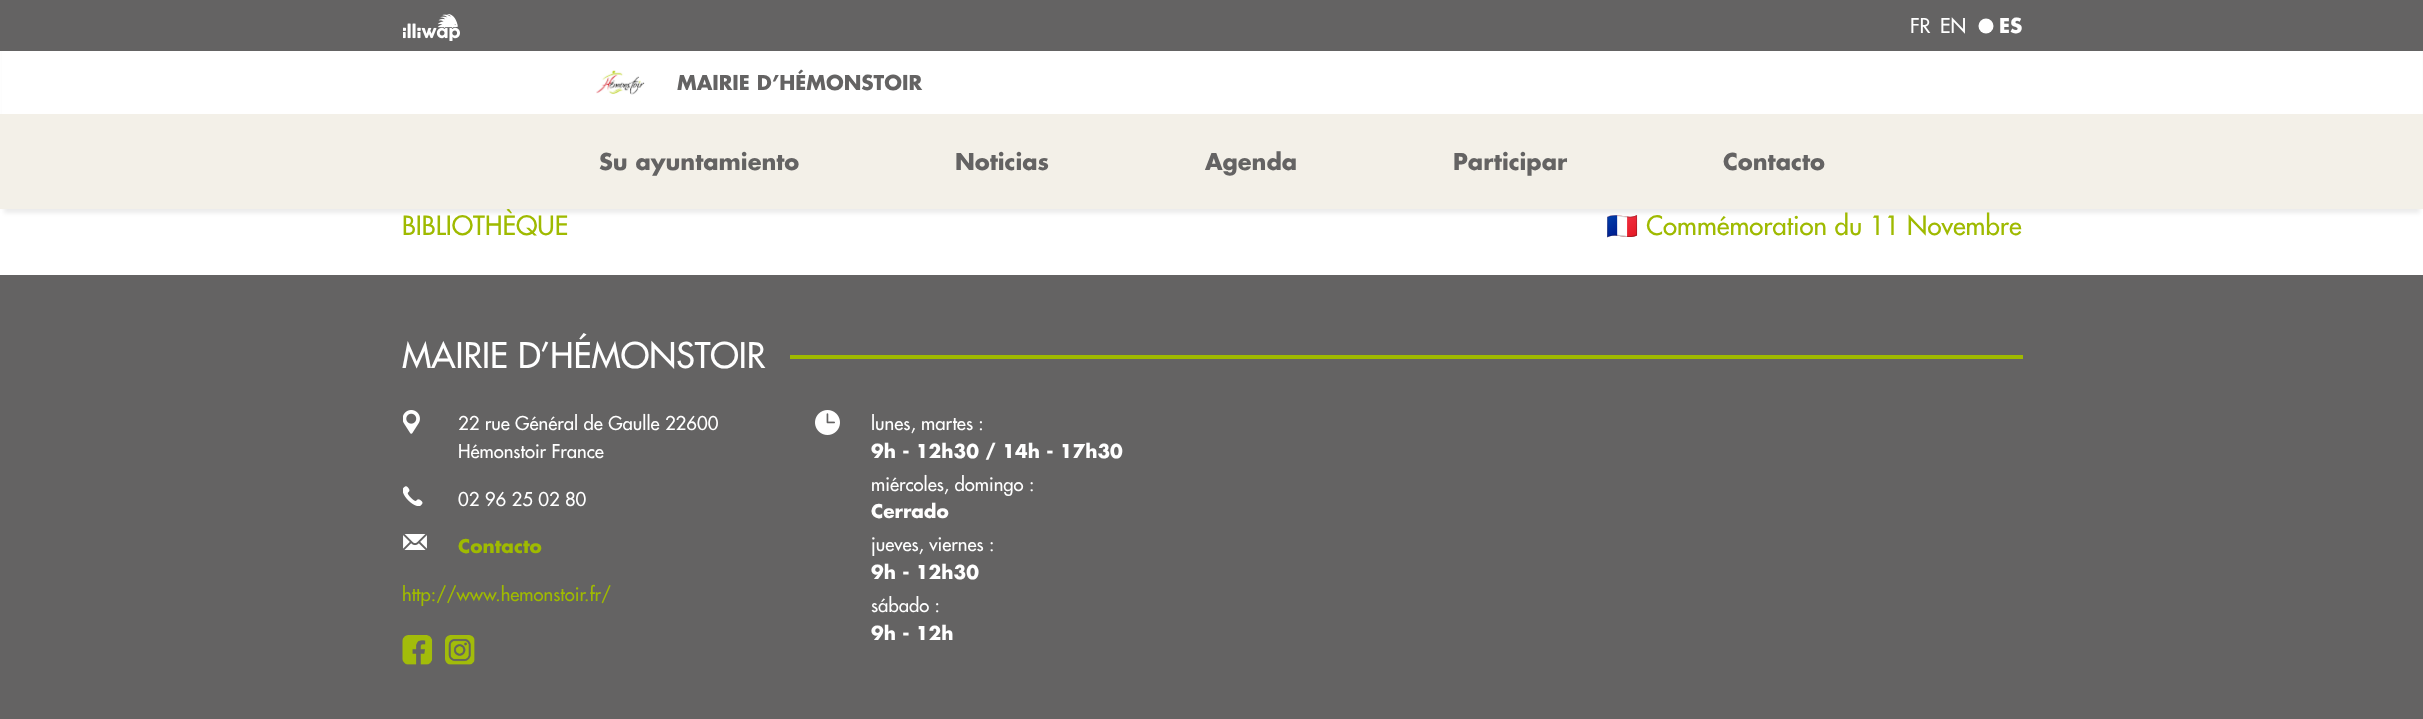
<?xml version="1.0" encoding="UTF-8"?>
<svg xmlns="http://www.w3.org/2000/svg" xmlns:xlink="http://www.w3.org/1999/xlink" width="2423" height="719">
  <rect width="100%" height="100%" fill="#ffffff" />
  <rect x="4" y="11" width="2416" height="202" fill="#000000" fill-opacity="0.08" filter="blur(2px)" />
  <rect x="2" y="51" width="2420" height="63" fill="#ffffff" />
  <rect width="2423" height="51" fill="#646363" />
  <image x="403" y="14" width="57" height="27" xlink:href="image1.png" />
  <circle cx="1986" cy="26" r="7.5" fill="#ffffff" />
  <image x="596" y="70" width="49" height="25" xlink:href="image2.png" />
  <rect y="275" width="2423" height="444" fill="#646363" />
  <rect x="790" y="355" width="1233" height="4" fill="#9fba00" />
  <image x="403" y="410" width="17" height="24" xlink:href="image3.png" />
  <image x="403" y="486" width="20" height="20" xlink:href="image4.png" />
  <image x="403" y="534" width="24" height="16" xlink:href="image5.png" />
  <image x="402" y="635" width="31" height="30" xlink:href="image6.png" />
  <image x="445" y="635" width="30" height="30" xlink:href="image7.png" />
  <image x="815" y="410" width="25" height="25" xlink:href="image8.png" />
  <text x="1910" y="33" style="font-family: Futura; font-size: 20px; fill: #ffffff">FR</text>
  <text x="1940" y="33" style="font-family: Futura; font-size: 20px; fill: #ffffff">EN</text>
  <text x="1999" y="33" style="font-family: Futura; font-size: 20px; font-weight: bold; fill: #ffffff">ES</text>
  <text x="677" y="90" style="font-family: Futura; font-size: 20px; font-weight: bold; fill: #646363">MAIRIE D’HÉMONSTOIR</text>
  <text x="402" y="235" style="font-family: Futura; font-size: 25.9px; fill: #9fba00">BIBLIOTHÈQUE</text>
  <rect y="114" width="2423" height="95" fill="#f3f0e8" />
  <text x="599" y="170" style="font-family: Futura; font-size: 22.5px; font-weight: bold; fill: #646363">Su ayuntamiento</text>
  <text x="1723" y="170" style="font-family: Futura; font-size: 22.5px; font-weight: bold; fill: #646363">Contacto</text>
  <text x="1453" y="170" style="font-family: Futura; font-size: 22.5px; font-weight: bold; fill: #646363">Participar</text>
  <text x="1205" y="170" style="font-family: Futura; font-size: 22.5px; font-weight: bold; fill: #646363">Agenda</text>
  <text x="955" y="170" style="font-family: Futura; font-size: 22.5px; font-weight: bold; fill: #646363">Noticias</text>
  <text x="1606" y="235" style="font-family: Noto Color Emoji; font-size: 25.9px; fill: #9fba00">🇨🇵</text>
  <text x="1646" y="235" style="font-family: Futura; font-size: 25.9px; fill: #9fba00">Commémoration du 11 Novembre</text>
  <text x="402" y="368" style="font-family: Futura; font-size: 34.4px; fill: #ffffff">MAIRIE D’HÉMONSTOIR</text>
  <text x="458" y="430" style="font-family: Futura; font-size: 18.5px; fill: #ffffff">22 rue Général de Gaulle 22600</text>
  <text x="458" y="458" style="font-family: Futura; font-size: 18.5px; fill: #ffffff">Hémonstoir France</text>
  <text x="458" y="506" style="font-family: Futura; font-size: 18.5px; fill: #ffffff">02 96 25 02 80</text>
  <text x="458" y="553" style="font-family: Futura; font-size: 18.5px; font-weight: bold; fill: #9fba00">Contacto</text>
  <text x="402" y="601" style="font-family: Futura; font-size: 18.5px; fill: #9fba00">http://www.hemonstoir.fr/</text>
  <text x="871" y="430" style="font-family: Futura; font-size: 18.5px; fill: #ffffff">lunes, martes :</text>
  <text x="871" y="458" style="font-family: Futura; font-size: 18.5px; font-weight: bold; fill: #ffffff">9h - 12h30 / 14h - 17h30</text>
  <text x="871" y="491" style="font-family: Futura; font-size: 18.5px; fill: #ffffff">miércoles, domingo :</text>
  <text x="871" y="518" style="font-family: Futura; font-size: 18.5px; font-weight: bold; fill: #ffffff">Cerrado</text>
  <text x="871" y="551" style="font-family: Futura; font-size: 18.5px; fill: #ffffff">jueves, viernes :</text>
  <text x="871" y="579" style="font-family: Futura; font-size: 18.5px; font-weight: bold; fill: #ffffff">9h - 12h30</text>
  <text x="871" y="612" style="font-family: Futura; font-size: 18.5px; fill: #ffffff">sábado :</text>
  <text x="871" y="640" style="font-family: Futura; font-size: 18.5px; font-weight: bold; fill: #ffffff">9h - 12h</text>
</svg>
